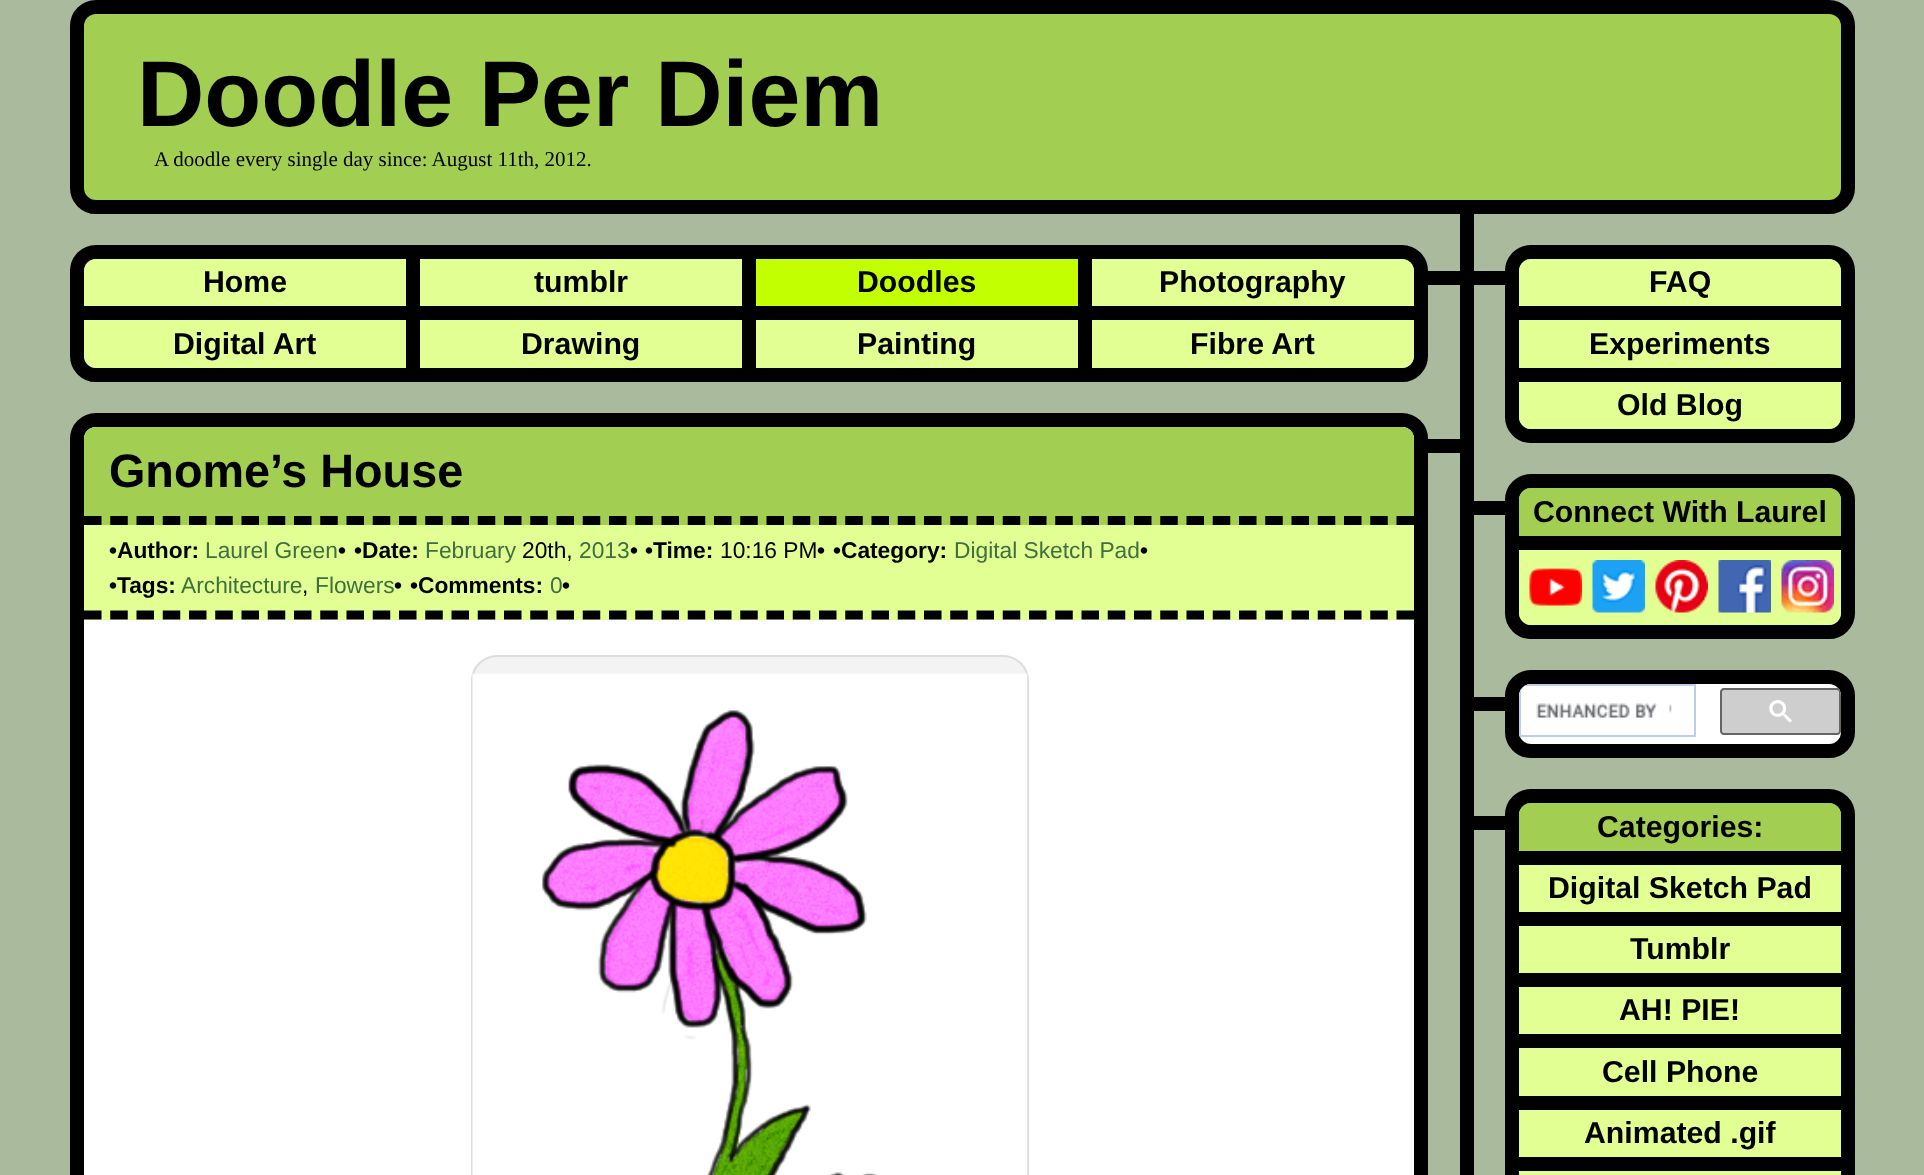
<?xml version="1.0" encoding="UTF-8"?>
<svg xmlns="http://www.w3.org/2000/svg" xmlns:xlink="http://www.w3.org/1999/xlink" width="1924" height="1175">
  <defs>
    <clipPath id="clip1"><rect x="1519" y="488" width="322" height="137" rx="12" /></clipPath>
    <clipPath id="clip2"><rect x="1519" y="684" width="322" height="60" rx="12" /></clipPath>
    <clipPath id="clip3"><rect x="1519" y="803" width="322" height="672" rx="12" /></clipPath>
  </defs>
  <rect width="100%" height="100%" fill="#a9ba9d" />
  <rect x="77" y="7" width="1771" height="200" rx="19" fill="#a2ce52" stroke="#000000" stroke-width="14" />
  <rect x="1460" y="214" width="14" height="961" fill="#000000" />
  <rect x="77" y="252" width="1344" height="123" rx="19" fill="none" stroke="#000000" stroke-width="14" />
  <path d="M 96 259 h 324 v 61 h -336 v -49 c 0 -6.5 5.5 -12 12 -12 z" fill="#e1ff93" />
  <rect x="406" y="259" width="14" height="47" fill="#000000" />
  <rect x="84" y="306" width="1008" height="14" fill="#000000" />
  <rect x="420" y="259" width="322" height="47" fill="#e1ff93" />
  <rect x="742" y="259" width="14" height="47" fill="#000000" />
  <rect x="756" y="259" width="322" height="47" fill="#c2ff00" />
  <rect x="1078" y="259" width="14" height="47" fill="#000000" />
  <path d="M 1092 259 h 310 c 6.5 0 12 5.5 12 12 v 49 h -322 z" fill="#e1ff93" />
  <rect x="1092" y="306" width="322" height="14" fill="#000000" />
  <path d="M 84 320 h 336 v 48 h -324 c -6.5 0 -12 -5.5 -12 -12 z" fill="#e1ff93" />
  <rect x="406" y="320" width="14" height="48" fill="#000000" />
  <rect x="420" y="320" width="322" height="48" fill="#e1ff93" />
  <rect x="742" y="320" width="14" height="48" fill="#000000" />
  <rect x="756" y="320" width="322" height="48" fill="#e1ff93" />
  <rect x="1078" y="320" width="14" height="48" fill="#000000" />
  <path d="M 1092 320 h 322 v 36 c 0 6.5 -5.5 12 -12 12 h -310 z" fill="#e1ff93" />
  <rect x="1428" y="271" width="32" height="14" fill="#000000" />
  <rect x="1428" y="439" width="32" height="14" fill="#000000" />
  <rect x="77" y="420" width="1344" height="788" rx="19" fill="#ffffff" stroke="#000000" stroke-width="14" />
  <path d="M 96 427 h 1306 c 6.5 0 12 5.5 12 12 v 181 h -1330 v -181 c 0 -6.5 5.5 -12 12 -12 z" fill="#e1ff93" />
  <path d="M 84 615 h 1330" fill="none" stroke="#000000" stroke-width="8.8" stroke-dasharray="17.5 8.75" />
  <path d="M 96 427 h 1306 c 6.5 0 12 5.5 12 12 v 86 h -1330 v -86 c 0 -6.5 5.5 -12 12 -12 z" fill="#a2ce52" />
  <path d="M 84 520.5 h 1330" fill="none" stroke="#000000" stroke-width="8.8" stroke-dasharray="17.5 8.75" />
  <rect x="472" y="656" width="556" height="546" rx="25" fill="#f3f3f3" stroke="#dddddd" stroke-width="2" />
  <image x="472" y="673" width="556" height="502" xlink:href="image1.png" />
  <rect x="1474" y="271" width="31" height="14" fill="#000000" />
  <rect x="1512" y="252" width="336" height="184" rx="19" fill="none" stroke="#000000" stroke-width="14" />
  <path d="M 1531 259 h 298 c 6.5 0 12 5.5 12 12 v 49 h -322 v -49 c 0 -6.5 5.5 -12 12 -12 z" fill="#e1ff93" />
  <rect x="1519" y="306" width="322" height="14" fill="#000000" />
  <rect x="1519" y="320" width="322" height="48" fill="#e1ff93" />
  <rect x="1519" y="368" width="322" height="14" fill="#000000" />
  <path d="M 1519 382 h 322 v 35 c 0 6.5 -5.5 12 -12 12 h -298 c -6.5 0 -12 -5.5 -12 -12 z" fill="#e1ff93" />
  <rect x="1474" y="501" width="31" height="14" fill="#000000" />
  <rect x="1512" y="481" width="336" height="151" rx="19" fill="none" stroke="#000000" stroke-width="14" />
  <path d="M 1531 488 h 298 c 6.5 0 12 5.5 12 12 v 50 h -322 v -50 c 0 -6.5 5.5 -12 12 -12 z" fill="#a2ce52" />
  <rect x="1519" y="536" width="322" height="14" fill="#000000" />
  <g clip-path="url(#clip1)">
    <rect x="1519" y="494" width="322" height="36" fill="#a2ce52" />
  </g>
  <path d="M 1519 550 h 322 v 63 c 0 6.5 -5.5 12 -12 12 h -298 c -6.5 0 -12 -5.5 -12 -12 z" fill="#e1ff93" />
  <image x="1529" y="568" width="53" height="38" xlink:href="image2.png" />
  <image x="1592" y="560" width="53" height="53" xlink:href="image3.png" />
  <image x="1655" y="560" width="53" height="53" xlink:href="image4.png" />
  <image x="1718" y="560" width="53" height="53" xlink:href="image5.png" />
  <image x="1781" y="560" width="53" height="53" xlink:href="image6.png" />
  <rect x="1474" y="697" width="31" height="14" fill="#000000" />
  <rect x="1512" y="677" width="336" height="74" rx="19" fill="#ffffff" stroke="#000000" stroke-width="14" />
  <g clip-path="url(#clip2)">
    <path d="M 1531 684 h 165 v 53 h -177 v -41 c 0 -6.5 5.5 -12 12 -12 z" fill="#ffffff" />
  </g>
  <path d="M 1531 684 c -2 0 -5 1 -7 2 h 170 v 49 h -173 v -46 c -1 2 -2 5 -2 7 v 36 c 0 2 0 3 1 5 h 176 v -53 z" fill="#bccdf0" />
  <image x="1536" y="703" width="136" height="15" xlink:href="image7.png" />
  <g clip-path="url(#clip2)">
    <rect x="1720" y="688" width="121" height="47" rx="4" fill="#cecece" />
  </g>
  <path d="M 1724 688 c -2 0 -4 2 -4 4 v 39 c 0 2 2 4 4 4 h 113 c 2 0 4 -2 4 -4 v -35 c 0 -3 -1 -6 -3 -8 h -1 z m 0 2 c -1 0 -2 1 -2 2 v 39 c 0 1 1 2 2 2 h 113 c 1 0 2 -1 2 -2 v -39 c 0 -1 -1 -2 -2 -2 z" fill="#666666" fill-rule="evenodd" />
  <image x="1769" y="700" width="23" height="23" xlink:href="image8.png" />
  <rect x="1474" y="816" width="31" height="14" fill="#000000" />
  <rect x="1512" y="796" width="336" height="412" rx="19" fill="none" stroke="#000000" stroke-width="14" />
  <path d="M 1531 803 h 298 c 6.5 0 12 5.5 12 12 v 50 h -322 v -50 c 0 -6.5 5.5 -12 12 -12 z" fill="#a2ce52" />
  <rect x="1519" y="851" width="322" height="14" fill="#000000" />
  <g clip-path="url(#clip3)">
    <rect x="1519" y="809" width="322" height="36" fill="#a2ce52" />
  </g>
  <rect x="1519" y="912" width="322" height="14" fill="#000000" />
  <rect x="1519" y="865" width="322" height="47" fill="#e1ff93" />
  <rect x="1519" y="973" width="322" height="14" fill="#000000" />
  <rect x="1519" y="926" width="322" height="47" fill="#e1ff93" />
  <rect x="1519" y="1034" width="322" height="14" fill="#000000" />
  <rect x="1519" y="987" width="322" height="47" fill="#e1ff93" />
  <rect x="1519" y="1096" width="322" height="14" fill="#000000" />
  <rect x="1519" y="1048" width="322" height="48" fill="#e1ff93" />
  <rect x="1519" y="1157" width="322" height="14" fill="#000000" />
  <rect x="1519" y="1110" width="322" height="47" fill="#e1ff93" />
  <rect x="1519" y="1171" width="322" height="4" fill="#e1ff93" />
  <text x="137" y="126" style="font-family: Liberation Sans; font-size: 93.25px; font-weight: bold; fill: #000000">Doodle Per Diem</text>
  <text x="154" y="166" style="font-family: Liberation Serif; font-size: 21px; fill: #000000">A doodle every single day since: August 11th, 2012.</text>
  <text x="203" y="292" style="font-family: Liberation Sans; font-size: 30.25px; font-weight: bold; fill: #000000">Home</text>
  <text x="534" y="292" style="font-family: Liberation Sans; font-size: 30.25px; font-weight: bold; fill: #000000">tumblr</text>
  <text x="857" y="292" style="font-family: Liberation Sans; font-size: 30.25px; font-weight: bold; fill: #000000">Doodles</text>
  <text x="1159" y="292" style="font-family: Liberation Sans; font-size: 30.25px; font-weight: bold; fill: #000000">Photography</text>
  <text x="173" y="354" style="font-family: Liberation Sans; font-size: 30.25px; font-weight: bold; fill: #000000">Digital Art</text>
  <text x="521" y="354" style="font-family: Liberation Sans; font-size: 30.25px; font-weight: bold; fill: #000000">Drawing</text>
  <text x="857" y="354" style="font-family: Liberation Sans; font-size: 30.25px; font-weight: bold; fill: #000000">Painting</text>
  <text x="1190" y="354" style="font-family: Liberation Sans; font-size: 30.25px; font-weight: bold; fill: #000000">Fibre Art</text>
  <text x="109" y="487" style="font-family: Liberation Sans; font-size: 46.75px; font-weight: bold; fill: #000000">Gnome’s House</text>
  <text x="109" y="558" style="font-family: Liberation Sans; font-size: 22.75px; font-weight: bold; fill: #000000">•Author:</text>
  <text x="205" y="558" style="font-family: Liberation Sans; font-size: 22.75px; fill: #3e703e">Laurel Green</text>
  <text x="338" y="558" style="font-family: Liberation Sans; font-size: 22.75px; font-weight: bold; fill: #000000">•</text>
  <text x="354" y="558" style="font-family: Liberation Sans; font-size: 22.75px; font-weight: bold; fill: #000000">•Date:</text>
  <text x="425" y="558" style="font-family: Liberation Sans; font-size: 22.75px; fill: #3e703e">February</text>
  <text x="522" y="558" style="font-family: Liberation Sans; font-size: 22.75px; fill: #000000">20th,</text>
  <text x="579" y="558" style="font-family: Liberation Sans; font-size: 22.75px; fill: #3e703e">2013</text>
  <text x="630" y="558" style="font-family: Liberation Sans; font-size: 22.75px; font-weight: bold; fill: #000000">•</text>
  <text x="645" y="558" style="font-family: Liberation Sans; font-size: 22.75px; font-weight: bold; fill: #000000">•Time:</text>
  <text x="720" y="558" style="font-family: Liberation Sans; font-size: 22.75px; fill: #000000">10:16 PM</text>
  <text x="817" y="558" style="font-family: Liberation Sans; font-size: 22.75px; font-weight: bold; fill: #000000">•</text>
  <text x="833" y="558" style="font-family: Liberation Sans; font-size: 22.75px; font-weight: bold; fill: #000000">•Category:</text>
  <text x="954" y="558" style="font-family: Liberation Sans; font-size: 22.75px; fill: #3e703e">Digital Sketch Pad</text>
  <text x="1140" y="558" style="font-family: Liberation Sans; font-size: 22.75px; font-weight: bold; fill: #000000">•</text>
  <text x="109" y="593" style="font-family: Liberation Sans; font-size: 22.75px; font-weight: bold; fill: #000000">•Tags:</text>
  <text x="181" y="593" style="font-family: Liberation Sans; font-size: 22.75px; fill: #3e703e">Architecture</text>
  <text x="315" y="593" style="font-family: Liberation Sans; font-size: 22.75px; fill: #3e703e">Flowers</text>
  <text x="394" y="593" style="font-family: Liberation Sans; font-size: 22.75px; font-weight: bold; fill: #000000">•</text>
  <text x="302" y="593" style="font-family: Liberation Sans; font-size: 22.75px; fill: #000000">,</text>
  <text x="410" y="593" style="font-family: Liberation Sans; font-size: 22.75px; font-weight: bold; fill: #000000">•Comments:</text>
  <text x="550" y="593" style="font-family: Liberation Sans; font-size: 22.75px; fill: #3e703e">0</text>
  <text x="562" y="593" style="font-family: Liberation Sans; font-size: 22.75px; font-weight: bold; fill: #000000">•</text>
  <text x="1649" y="292" style="font-family: Liberation Sans; font-size: 30.25px; font-weight: bold; fill: #000000">FAQ</text>
  <text x="1589" y="354" style="font-family: Liberation Sans; font-size: 30.25px; font-weight: bold; fill: #000000">Experiments</text>
  <text x="1617" y="415" style="font-family: Liberation Sans; font-size: 30.25px; font-weight: bold; fill: #000000">Old Blog</text>
  <text x="1533" y="522" style="font-family: Liberation Sans; font-size: 30.25px; font-weight: bold; fill: #000000">Connect With Laurel</text>
  <text x="1597" y="837" style="font-family: Liberation Sans; font-size: 30.25px; font-weight: bold; fill: #000000">Categories:</text>
  <text x="1548" y="898" style="font-family: Liberation Sans; font-size: 30.25px; font-weight: bold; fill: #000000">Digital Sketch Pad</text>
  <text x="1630" y="959" style="font-family: Liberation Sans; font-size: 30.25px; font-weight: bold; fill: #000000">Tumblr</text>
  <text x="1619" y="1020" style="font-family: Liberation Sans; font-size: 30.25px; font-weight: bold; fill: #000000">AH! PIE!</text>
  <text x="1602" y="1082" style="font-family: Liberation Sans; font-size: 30.25px; font-weight: bold; fill: #000000">Cell Phone</text>
  <text x="1584" y="1143" style="font-family: Liberation Sans; font-size: 30.25px; font-weight: bold; fill: #000000">Animated .gif</text>
</svg>
